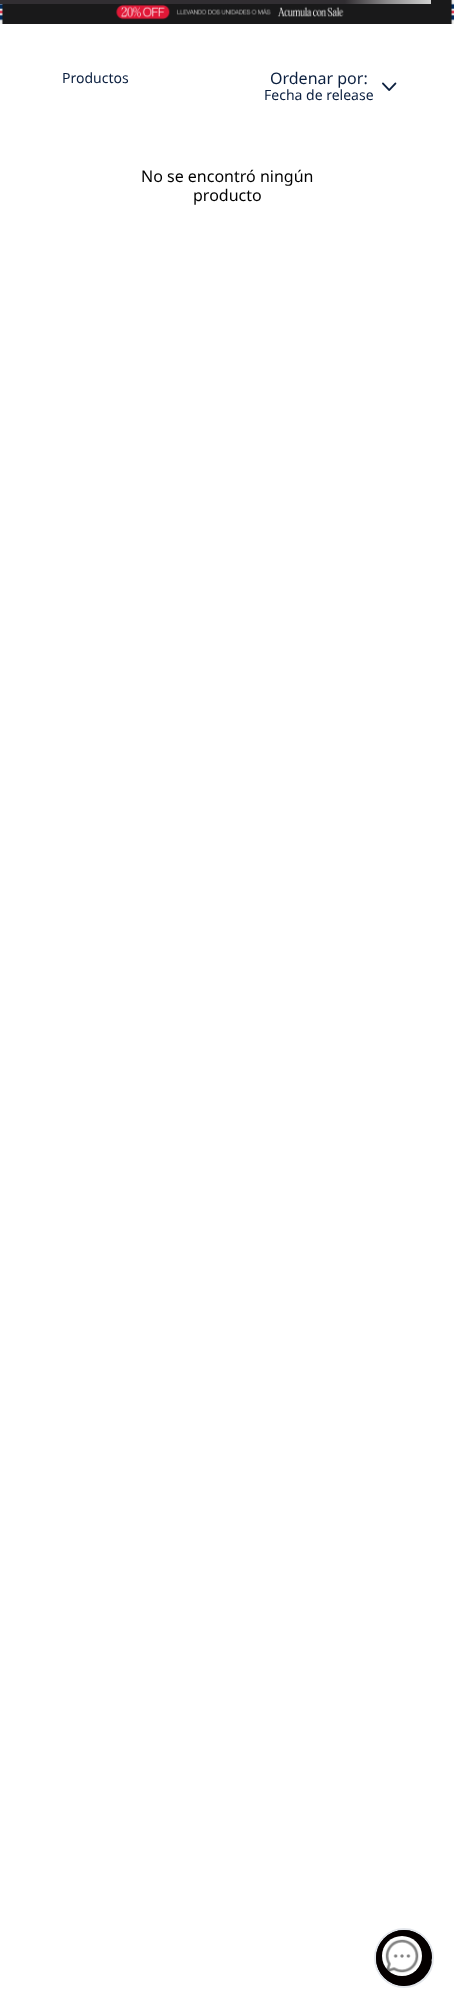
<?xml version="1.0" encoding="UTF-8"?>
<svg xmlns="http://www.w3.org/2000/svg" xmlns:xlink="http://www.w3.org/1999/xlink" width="454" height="2003">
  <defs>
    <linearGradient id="g1" gradientUnits="userSpaceOnUse" x1="0" y1="2" x2="431" y2="2"><stop offset="0.8" stop-color="#312e32" /><stop offset="0.9" stop-color="#8d8b8d" /><stop offset="1" stop-color="#d1d1d1" /></linearGradient>
  </defs>
  <rect width="100%" height="100%" fill="#ffffff" />
  <image x="0" y="0" width="454" height="24" xlink:href="image1.png" />
  <rect width="431" height="4" fill="url(#g1)" />
  <image x="382" y="82" width="15" height="9" xlink:href="image2.png" />
  <image x="374" y="1928" width="60" height="60" xlink:href="image3.png" />
  <text x="62" y="83" style="font-family: Noto Sans; font-size: 14px; fill: #0b1f3f">Productos</text>
  <text x="270" y="84" style="font-family: Noto Sans; font-size: 16px; fill: #0b1f3f">Ordenar por:</text>
  <text x="264" y="100" style="font-family: Noto Sans; font-size: 14px; fill: #0b1f3f">Fecha de release</text>
  <text x="141" y="182" style="font-family: Noto Sans; font-size: 16px; fill: #000000">No se encontró ningún</text>
  <text x="193" y="201" style="font-family: Noto Sans; font-size: 16px; fill: #000000">producto</text>
</svg>
